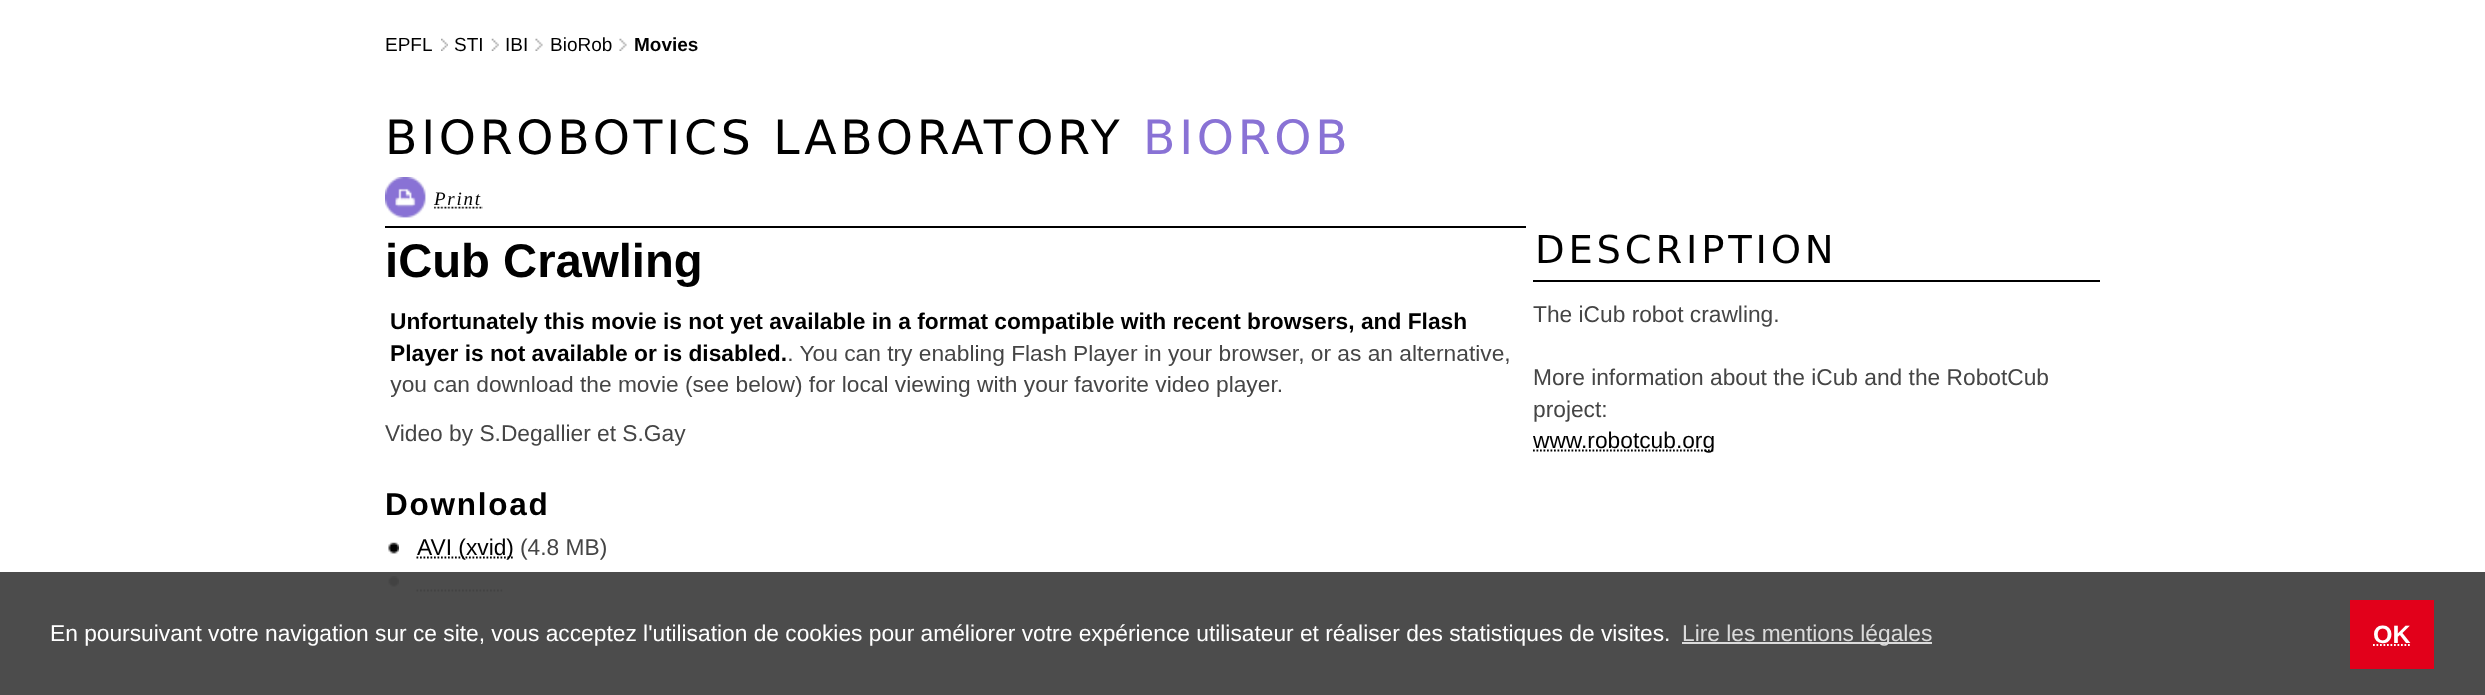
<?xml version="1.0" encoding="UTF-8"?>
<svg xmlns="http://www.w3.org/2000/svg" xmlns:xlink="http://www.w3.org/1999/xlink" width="2485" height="695">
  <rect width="100%" height="100%" fill="#ffffff" />
  <image x="441" y="38" width="7" height="13" xlink:href="image1.png" />
  <image x="491" y="38" width="8" height="13" xlink:href="image2.png" />
  <image x="535" y="38" width="8" height="13" xlink:href="image3.png" />
  <image x="619" y="38" width="8" height="13" xlink:href="image3.png" />
  <image x="385" y="177" width="41" height="41" xlink:href="image4.png" />
  <image x="434" y="206" width="49" height="3" xlink:href="image5.png" />
  <rect x="385" y="226" width="1141" height="2" fill="#000000" />
  <image x="390" y="345" width="1119" height="52" xlink:href="image6.png" />
  <image x="388" y="542" width="11" height="12" xlink:href="image7.png" />
  <path d="M 416.5 557.5 h 97" fill="none" stroke="#000000" stroke-width="1.8" stroke-dasharray="1.75 1.75" />
  <image x="388" y="576" width="11" height="11" xlink:href="image8.png" />
  <path d="M 416.5 590.5 h 87" fill="none" stroke="#000000" stroke-width="1.8" stroke-dasharray="1.75 1.75" />
  <rect x="1533" y="280" width="567" height="2" fill="#000000" />
  <path d="M 1533 450.5 h 182" fill="none" stroke="#000000" stroke-width="1.8" stroke-dasharray="1.75 1.75" />
  <rect y="572" width="2485" height="123" fill="#454545" fill-opacity="0.96" />
  <rect x="1682" y="642" width="250" height="2" fill="#dbdbdb" />
  <rect x="2350" y="600" width="84" height="69" fill="#e2001a" />
  <path d="M 2373 645 h 38" fill="none" stroke="#ffffff" stroke-width="1.8" stroke-dasharray="1.75 1.75" />
  <text x="385" y="51" style="font-family: Liberation Sans; font-size: 19px; fill: #000000">EPFL</text>
  <text x="454" y="51" style="font-family: Liberation Sans; font-size: 19px; fill: #000000">STI</text>
  <text x="505" y="51" style="font-family: Liberation Sans; font-size: 19px; fill: #000000">IBI</text>
  <text x="550" y="51" style="font-family: Liberation Sans; font-size: 19px; fill: #000000">BioRob</text>
  <text x="634" y="51" style="font-family: Liberation Sans; font-size: 19px; font-weight: bold; fill: #000000">Movies</text>
  <text x="385" y="154" style="font-family: DejaVu Sans; font-size: 47.25px; letter-spacing: 3.75px; fill: #000000">BIOROBOTICS LABORATORY</text>
  <text x="1143" y="154" style="font-family: DejaVu Sans; font-size: 47.25px; letter-spacing: 3.75px; fill: #8972d5">BIOROB</text>
  <text x="434" y="205" style="font-family: Liberation Serif; font-size: 19px; font-style: italic; letter-spacing: 1.75px; fill: #000000">Print</text>
  <text x="385" y="277" style="font-family: Liberation Sans; font-size: 47.25px; font-weight: bold; fill: #000000">iCub Crawling</text>
  <text x="390" y="329" style="font-family: Liberation Sans; font-size: 22.75px; font-weight: bold; fill: #000000">Unfortunately this movie is not yet available in a format compatible with recent browsers, and Flash</text>
  <text x="390" y="361" style="font-family: Liberation Sans; font-size: 22.75px; font-weight: bold; fill: #000000">Player is not available or is disabled.</text>
  <text x="385" y="441" style="font-family: Liberation Sans; font-size: 22.75px; fill: #454545">Video by S.Degallier et S.Gay</text>
  <text x="385" y="515" style="font-family: Liberation Sans; font-size: 31.5px; font-weight: bold; letter-spacing: 1.75px; fill: #000000">Download</text>
  <text x="417" y="555" style="font-family: Liberation Sans; font-size: 22.75px; fill: #000000">AVI (xvid)</text>
  <text x="520" y="555" style="font-family: Liberation Sans; font-size: 22.75px; fill: #454545">(4.8 MB)</text>
  <text x="1535" y="263" style="font-family: DejaVu Sans; font-size: 38.5px; letter-spacing: 3.8px; fill: #000000">DESCRIPTION</text>
  <text x="1533" y="322" style="font-family: Liberation Sans; font-size: 22.75px; fill: #454545">The iCub robot crawling.</text>
  <text x="1533" y="385" style="font-family: Liberation Sans; font-size: 22.75px; fill: #454545">More information about the iCub and the RobotCub</text>
  <text x="1533" y="417" style="font-family: Liberation Sans; font-size: 22.75px; fill: #454545">project:</text>
  <text x="1533" y="448" style="font-family: Liberation Sans; font-size: 22.75px; fill: #000000">www.robotcub.org</text>
  <text x="50" y="641" style="font-family: Liberation Sans; font-size: 22.75px; fill: #ffffff">En poursuivant votre navigation sur ce site, vous acceptez l'utilisation de cookies pour améliorer votre expérience utilisateur et réaliser des statistiques de visites.</text>
  <text x="1682" y="641" style="font-family: Liberation Sans; font-size: 22.75px; fill: #dbdbdb">Lire les mentions légales</text>
  <text x="2373" y="643" style="font-family: Liberation Sans; font-size: 25px; font-weight: bold; fill: #ffffff">OK</text>
</svg>
